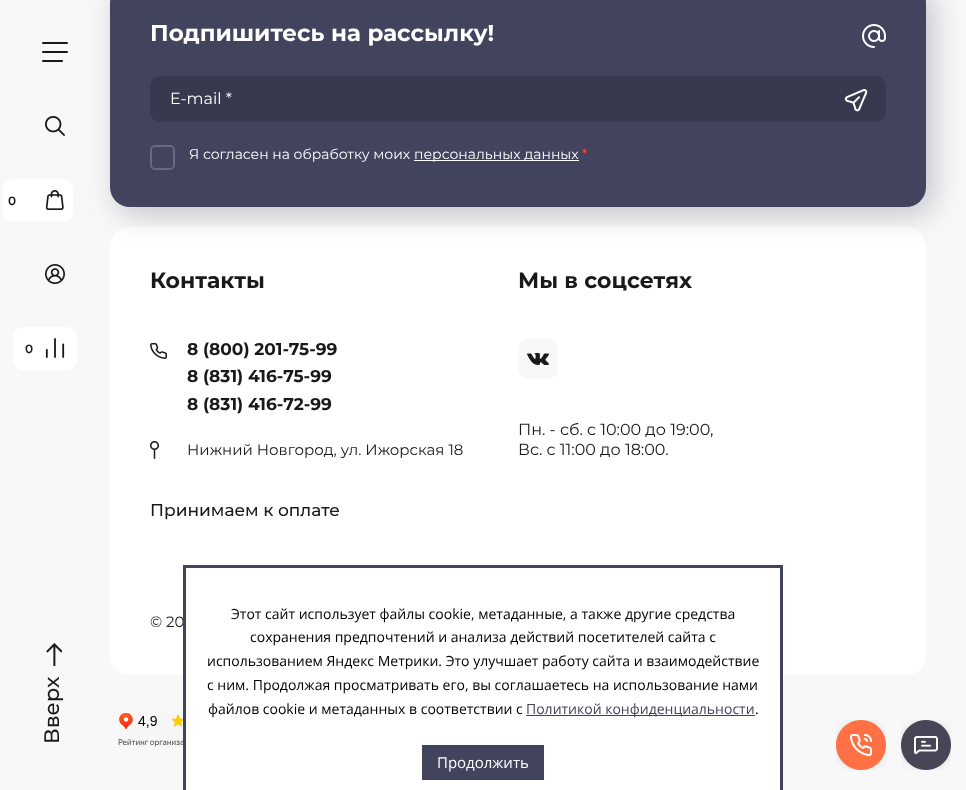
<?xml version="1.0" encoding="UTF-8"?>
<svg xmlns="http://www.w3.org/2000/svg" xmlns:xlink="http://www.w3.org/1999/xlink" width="966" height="790">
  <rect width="100%" height="100%" fill="#f8f8f8" />
  <image x="42" y="42" width="26" height="20" xlink:href="image1.png" />
  <image x="45" y="116" width="20" height="20" xlink:href="image2.png" />
  <rect x="110" y="227" width="816" height="448" rx="20" fill="#ffffff" />
  <rect x="117" y="-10" width="816" height="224" rx="20" fill="#41445c" fill-opacity="0.3" filter="blur(15px)" />
  <rect x="3" y="179" width="70" height="43" rx="10" fill="#ffffff" />
  <image x="45" y="190" width="19" height="20" xlink:href="image3.png" />
  <image x="45" y="264" width="20" height="20" xlink:href="image4.png" />
  <rect x="13" y="327" width="64" height="43" rx="10" fill="#ffffff" />
  <image x="45" y="338" width="20" height="20" xlink:href="image5.png" />
  <rect x="110" y="-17" width="816" height="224" rx="20" fill="#41445c" />
  <image x="862" y="24" width="24" height="24" xlink:href="image6.png" />
  <rect x="150" y="76" width="736" height="46" rx="10" fill="#373a4e" />
  <image x="844" y="89" width="24" height="23" xlink:href="image7.png" />
  <rect x="151" y="146" width="23" height="23" rx="4" fill="none" stroke="#67697d" stroke-width="2" />
  <rect x="414" y="160" width="165" height="1" fill="#ffffff" />
  <image x="150" y="343" width="17" height="16" xlink:href="image8.png" />
  <image x="150" y="441" width="9" height="18" xlink:href="image9.png" />
  <rect x="518" y="339" width="40" height="40" rx="10" fill="#f8f8f8" />
  <image x="527" y="353" width="22" height="12" xlink:href="image10.png" />
  <image x="118" y="713" width="65" height="34" xlink:href="image11.png" />
  <image x="46" y="643" width="16" height="23" xlink:href="image12.png" />
  <rect x="186" y="675" width="594" height="115" fill="#ffffff" />
  <rect x="183" y="565" width="600" height="3" fill="#41445c" />
  <rect x="780" y="565" width="3" height="225" fill="#41445c" />
  <rect x="526" y="715" width="229" height="1" fill="#41445c" />
  <rect x="422" y="745" width="122" height="35" fill="#41445c" />
  <image x="836" y="720" width="50" height="50" xlink:href="image13.png" />
  <image x="901" y="720" width="50" height="50" xlink:href="image14.png" />
  <text x="8" y="205" style="font-family: Montserrat; font-size: 12px; font-weight: 600; fill: #191919">0</text>
  <text x="25" y="353" style="font-family: Montserrat; font-size: 12px; font-weight: 600; fill: #191919">0</text>
  <text x="150" y="41" style="font-family: Montserrat; font-size: 23px; font-weight: bold; fill: #ffffff">Подпишитесь на рассылку!</text>
  <text x="170" y="104" style="font-family: Montserrat; font-size: 16px; fill: #ffffff">E-mail *</text>
  <text x="189" y="159" style="font-family: Montserrat; font-size: 14px; fill: #ffffff">Я согласен на обработку моих</text>
  <text x="414" y="159" style="font-family: Montserrat; font-size: 14px; fill: #ffffff">персональных данных</text>
  <text x="582" y="159" style="font-family: Montserrat; font-size: 14px; fill: #ff5640">*</text>
  <text x="150" y="288" style="font-family: Montserrat; font-size: 22px; font-weight: bold; fill: #191919">Контакты</text>
  <text x="187" y="355" style="font-family: Montserrat; font-size: 17px; font-weight: bold; fill: #191919">8 (800) 201-75-99</text>
  <text x="187" y="382" style="font-family: Montserrat; font-size: 17px; font-weight: bold; fill: #191919">8 (831) 416-75-99</text>
  <text x="187" y="410" style="font-family: Montserrat; font-size: 17px; font-weight: bold; fill: #191919">8 (831) 416-72-99</text>
  <text x="187" y="455" style="font-family: Montserrat; font-size: 15px; fill: #191919">Нижний Новгород, ул. Ижорская 18</text>
  <text x="518" y="288" style="font-family: Montserrat; font-size: 22px; font-weight: bold; fill: #191919">Мы в соцсетях</text>
  <text x="518" y="435" style="font-family: Montserrat; font-size: 16px; fill: #191919">Пн. - сб. c 10:00 до 19:00,</text>
  <text x="518" y="455" style="font-family: Montserrat; font-size: 16px; fill: #191919">Вс. с 11:00 до 18:00.</text>
  <text x="150" y="516" style="font-family: Montserrat; font-size: 17px; font-weight: 500; fill: #191919">Принимаем к оплате</text>
  <text x="150" y="627" style="font-family: Montserrat; font-size: 15px; fill: #191919">© 20</text>
  <text x="59" y="744" transform="rotate(-90 59 744)" style="font-family: Montserrat; font-size: 21px; font-weight: 500; fill: #191919">Вверх</text>
  <rect x="183" y="565" width="3" height="225" fill="#41445c" />
  <text x="231" y="619" style="font-family: Open Sans; font-size: 14px; fill: #000000">Этот сайт использует файлы cookie, метаданные, а также другие средства</text>
  <text x="250" y="642" style="font-family: Open Sans; font-size: 14px; fill: #000000">сохранения предпочтений и анализа действий посетителей сайта с</text>
  <text x="207" y="666" style="font-family: Open Sans; font-size: 14px; fill: #000000">использованием Яндекс Метрики. Это улучшает работу сайта и взаимодействие</text>
  <text x="207" y="690" style="font-family: Open Sans; font-size: 14px; fill: #000000">с ним. Продолжая просматривать его, вы соглашаетесь на использование нами</text>
  <text x="208" y="714" style="font-family: Open Sans; font-size: 14px; fill: #000000">файлов cookie и метаданных в соответствии с</text>
  <text x="526" y="714" style="font-family: Open Sans; font-size: 14px; fill: #41445c">Политикой конфиденциальности</text>
  <text x="755" y="714" style="font-family: Open Sans; font-size: 14px; fill: #000000">.</text>
  <text x="437" y="768" style="font-family: Open Sans; font-size: 15px; fill: #ffffff">Продолжить</text>
</svg>
